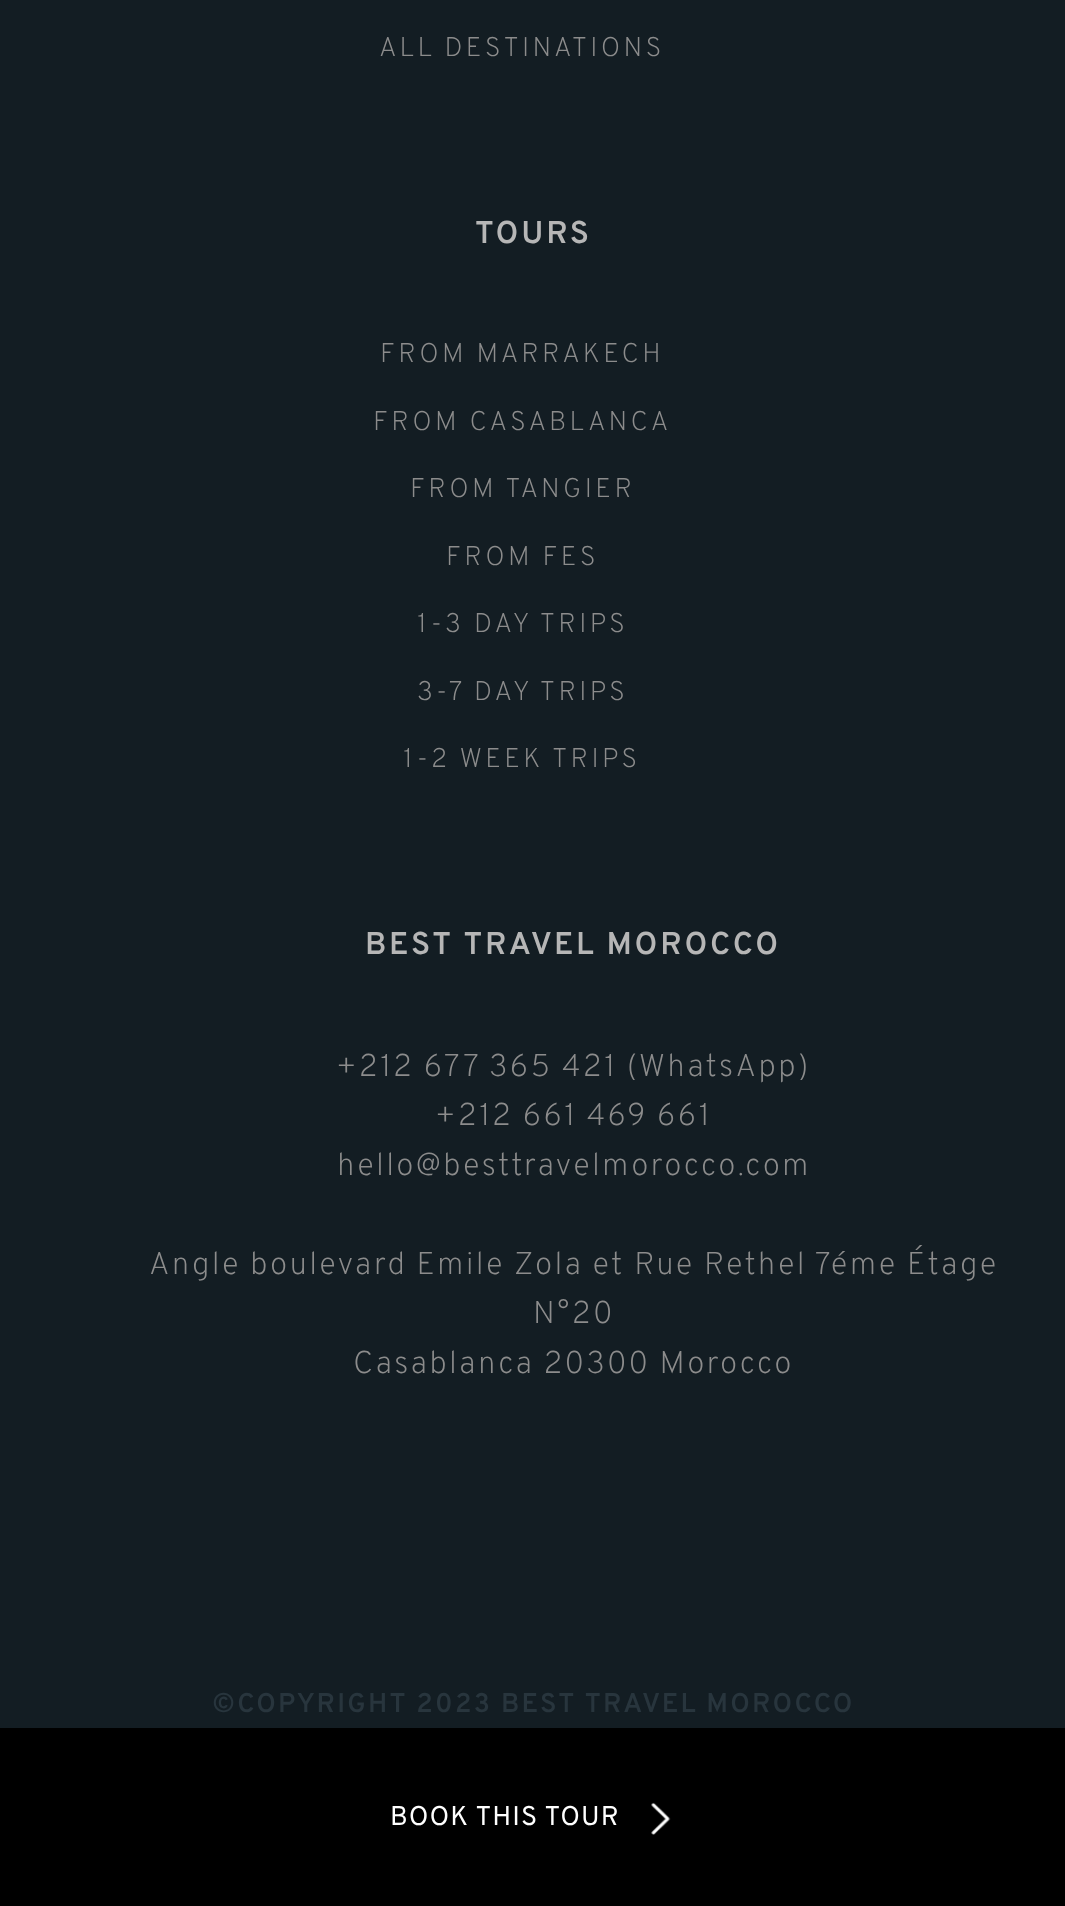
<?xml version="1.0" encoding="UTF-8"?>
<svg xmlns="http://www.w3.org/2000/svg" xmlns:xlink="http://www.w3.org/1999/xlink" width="1065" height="1906">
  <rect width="100%" height="100%" fill="#131d23" />
  <rect y="1728" width="1065" height="178" fill="#000000" />
  <image x="651" y="1802" width="20" height="33" xlink:href="image1.png" />
  <text x="379" y="56" style="font-family: Overpass; font-size: 27px; font-weight: 200; letter-spacing: 3.4px; fill: #8c8c8c">ALL DESTINATIONS</text>
  <text x="475" y="243" style="font-family: Overpass; font-size: 31.5px; font-weight: 600; letter-spacing: 2.8px; fill: #b6b6b6">TOURS</text>
  <text x="380" y="362" style="font-family: Overpass; font-size: 27px; font-weight: 200; letter-spacing: 3.4px; fill: #8c8c8c">FROM MARRAKECH</text>
  <text x="373" y="430" style="font-family: Overpass; font-size: 27px; font-weight: 200; letter-spacing: 3.4px; fill: #8c8c8c">FROM CASABLANCA</text>
  <text x="410" y="497" style="font-family: Overpass; font-size: 27px; font-weight: 200; letter-spacing: 3.4px; fill: #8c8c8c">FROM TANGIER</text>
  <text x="446" y="565" style="font-family: Overpass; font-size: 27px; font-weight: 200; letter-spacing: 3.4px; fill: #8c8c8c">FROM FES</text>
  <text x="417" y="632" style="font-family: Overpass; font-size: 27px; font-weight: 200; letter-spacing: 3.4px; fill: #8c8c8c">1-3 DAY TRIPS</text>
  <text x="417" y="700" style="font-family: Overpass; font-size: 27px; font-weight: 200; letter-spacing: 3.4px; fill: #8c8c8c">3-7 DAY TRIPS</text>
  <text x="403" y="767" style="font-family: Overpass; font-size: 27px; font-weight: 200; letter-spacing: 3.4px; fill: #8c8c8c">1-2 WEEK TRIPS</text>
  <text x="365" y="954" style="font-family: Overpass; font-size: 31.5px; font-weight: 600; letter-spacing: 2.8px; fill: #b6b6b6">BEST TRAVEL MOROCCO</text>
  <text x="336" y="1076" style="font-family: Overpass; font-size: 31.5px; font-weight: 200; letter-spacing: 2.25px; fill: #8c8c8c">+212 677 365 421 (WhatsApp)</text>
  <text x="435" y="1125" style="font-family: Overpass; font-size: 31.5px; font-weight: 200; letter-spacing: 2.25px; fill: #8c8c8c">+212 661 469 661</text>
  <text x="337" y="1175" style="font-family: Overpass; font-size: 31.5px; font-weight: 200; letter-spacing: 2.25px; fill: #8c8c8c">hello@besttravelmorocco.com</text>
  <text x="149" y="1274" style="font-family: Overpass; font-size: 31.5px; font-weight: 200; letter-spacing: 2.25px; fill: #8c8c8c">Angle boulevard Emile Zola et Rue Rethel 7éme Étage</text>
  <text x="533" y="1323" style="font-family: Overpass; font-size: 31.5px; font-weight: 200; letter-spacing: 2.25px; fill: #8c8c8c">N°20</text>
  <text x="353" y="1373" style="font-family: Overpass; font-size: 31.5px; font-weight: 200; letter-spacing: 2.25px; fill: #8c8c8c">Casablanca 20300 Morocco</text>
  <text x="212" y="1712" style="font-family: Overpass; font-size: 27px; font-weight: 600; letter-spacing: 2.25px; fill: #28353d">©COPYRIGHT 2023 BEST TRAVEL MOROCCO</text>
  <text x="390" y="1825" style="font-family: Overpass; font-size: 27px; letter-spacing: 1.1px; fill: #ffffff">BOOK THIS TOUR</text>
</svg>
